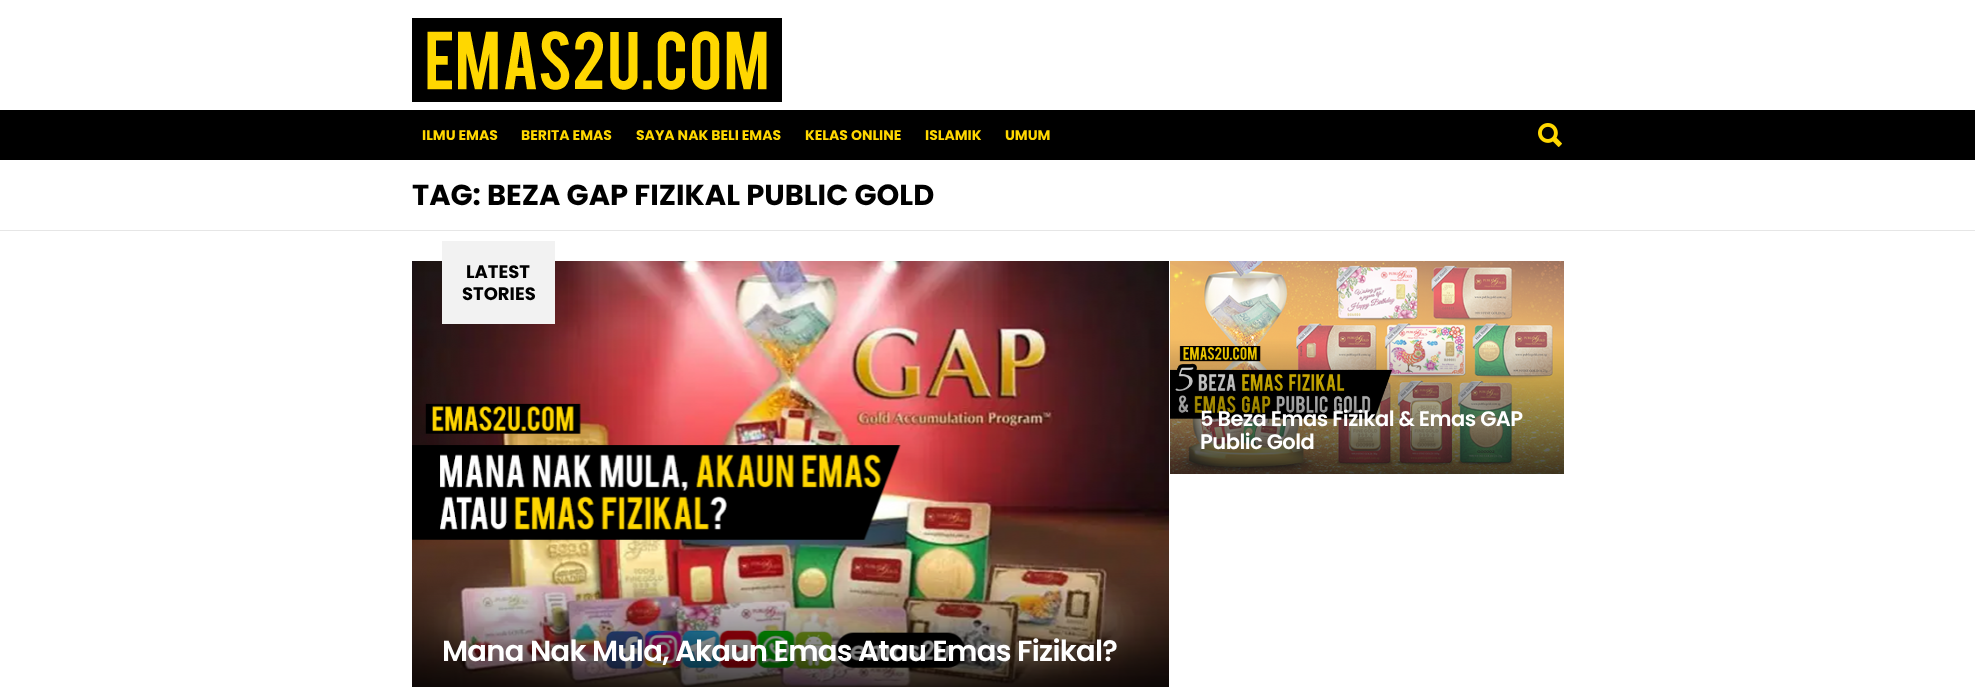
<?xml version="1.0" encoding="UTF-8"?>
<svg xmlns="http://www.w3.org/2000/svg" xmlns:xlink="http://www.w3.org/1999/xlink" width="1975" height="699">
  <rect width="100%" height="100%" fill="#ffffff" />
  <image x="412" y="18" width="370" height="84" xlink:href="image1.png" />
  <rect y="110" width="1975" height="50" fill="#000000" />
  <image x="1538" y="123" width="24" height="24" xlink:href="image2.png" />
  <rect y="230" width="1975" height="1" fill="#e6e6e6" />
  <image x="412" y="261" width="757" height="426" xlink:href="image4.png" />
  <rect x="442" y="241" width="113" height="83" fill="#f2f2f2" />
  <image x="1170" y="261" width="394" height="213" xlink:href="image3.png" />
  <text x="422" y="140" style="font-family: Poppins; font-size: 14px; font-weight: bold; fill: #ffd700">ILMU EMAS</text>
  <text x="521" y="140" style="font-family: Poppins; font-size: 14px; font-weight: bold; fill: #ffd700">BERITA EMAS</text>
  <text x="636" y="140" style="font-family: Poppins; font-size: 14px; font-weight: bold; fill: #ffd700">SAYA NAK BELI EMAS</text>
  <text x="805" y="140" style="font-family: Poppins; font-size: 14px; font-weight: bold; fill: #ffd700">KELAS ONLINE</text>
  <text x="925" y="140" style="font-family: Poppins; font-size: 14px; font-weight: bold; fill: #ffd700">ISLAMIK</text>
  <text x="1005" y="140" style="font-family: Poppins; font-size: 14px; font-weight: bold; fill: #ffd700">UMUM</text>
  <text x="412" y="205" style="font-family: Poppins; font-size: 29px; font-weight: bold; fill: #000000">TAG: BEZA GAP FIZIKAL PUBLIC GOLD</text>
  <text x="466" y="278" style="font-family: Poppins; font-size: 18px; font-weight: bold; fill: #000000">LATEST</text>
  <text x="462" y="300" style="font-family: Poppins; font-size: 18px; font-weight: bold; fill: #000000">STORIES</text>
  <text x="1200" y="426" style="font-family: Poppins; font-size: 21px; font-weight: 600; letter-spacing: -0.5px; fill: #ffffff">5 Beza Emas Fizikal &amp; Emas GAP</text>
  <text x="1200" y="449" style="font-family: Poppins; font-size: 21px; font-weight: 600; letter-spacing: -0.5px; fill: #ffffff">Public Gold</text>
  <text x="442" y="661" style="font-family: Poppins; font-size: 29px; font-weight: 600; letter-spacing: -0.7px; fill: #ffffff">Mana Nak Mula, Akaun Emas Atau Emas Fizikal?</text>
</svg>
